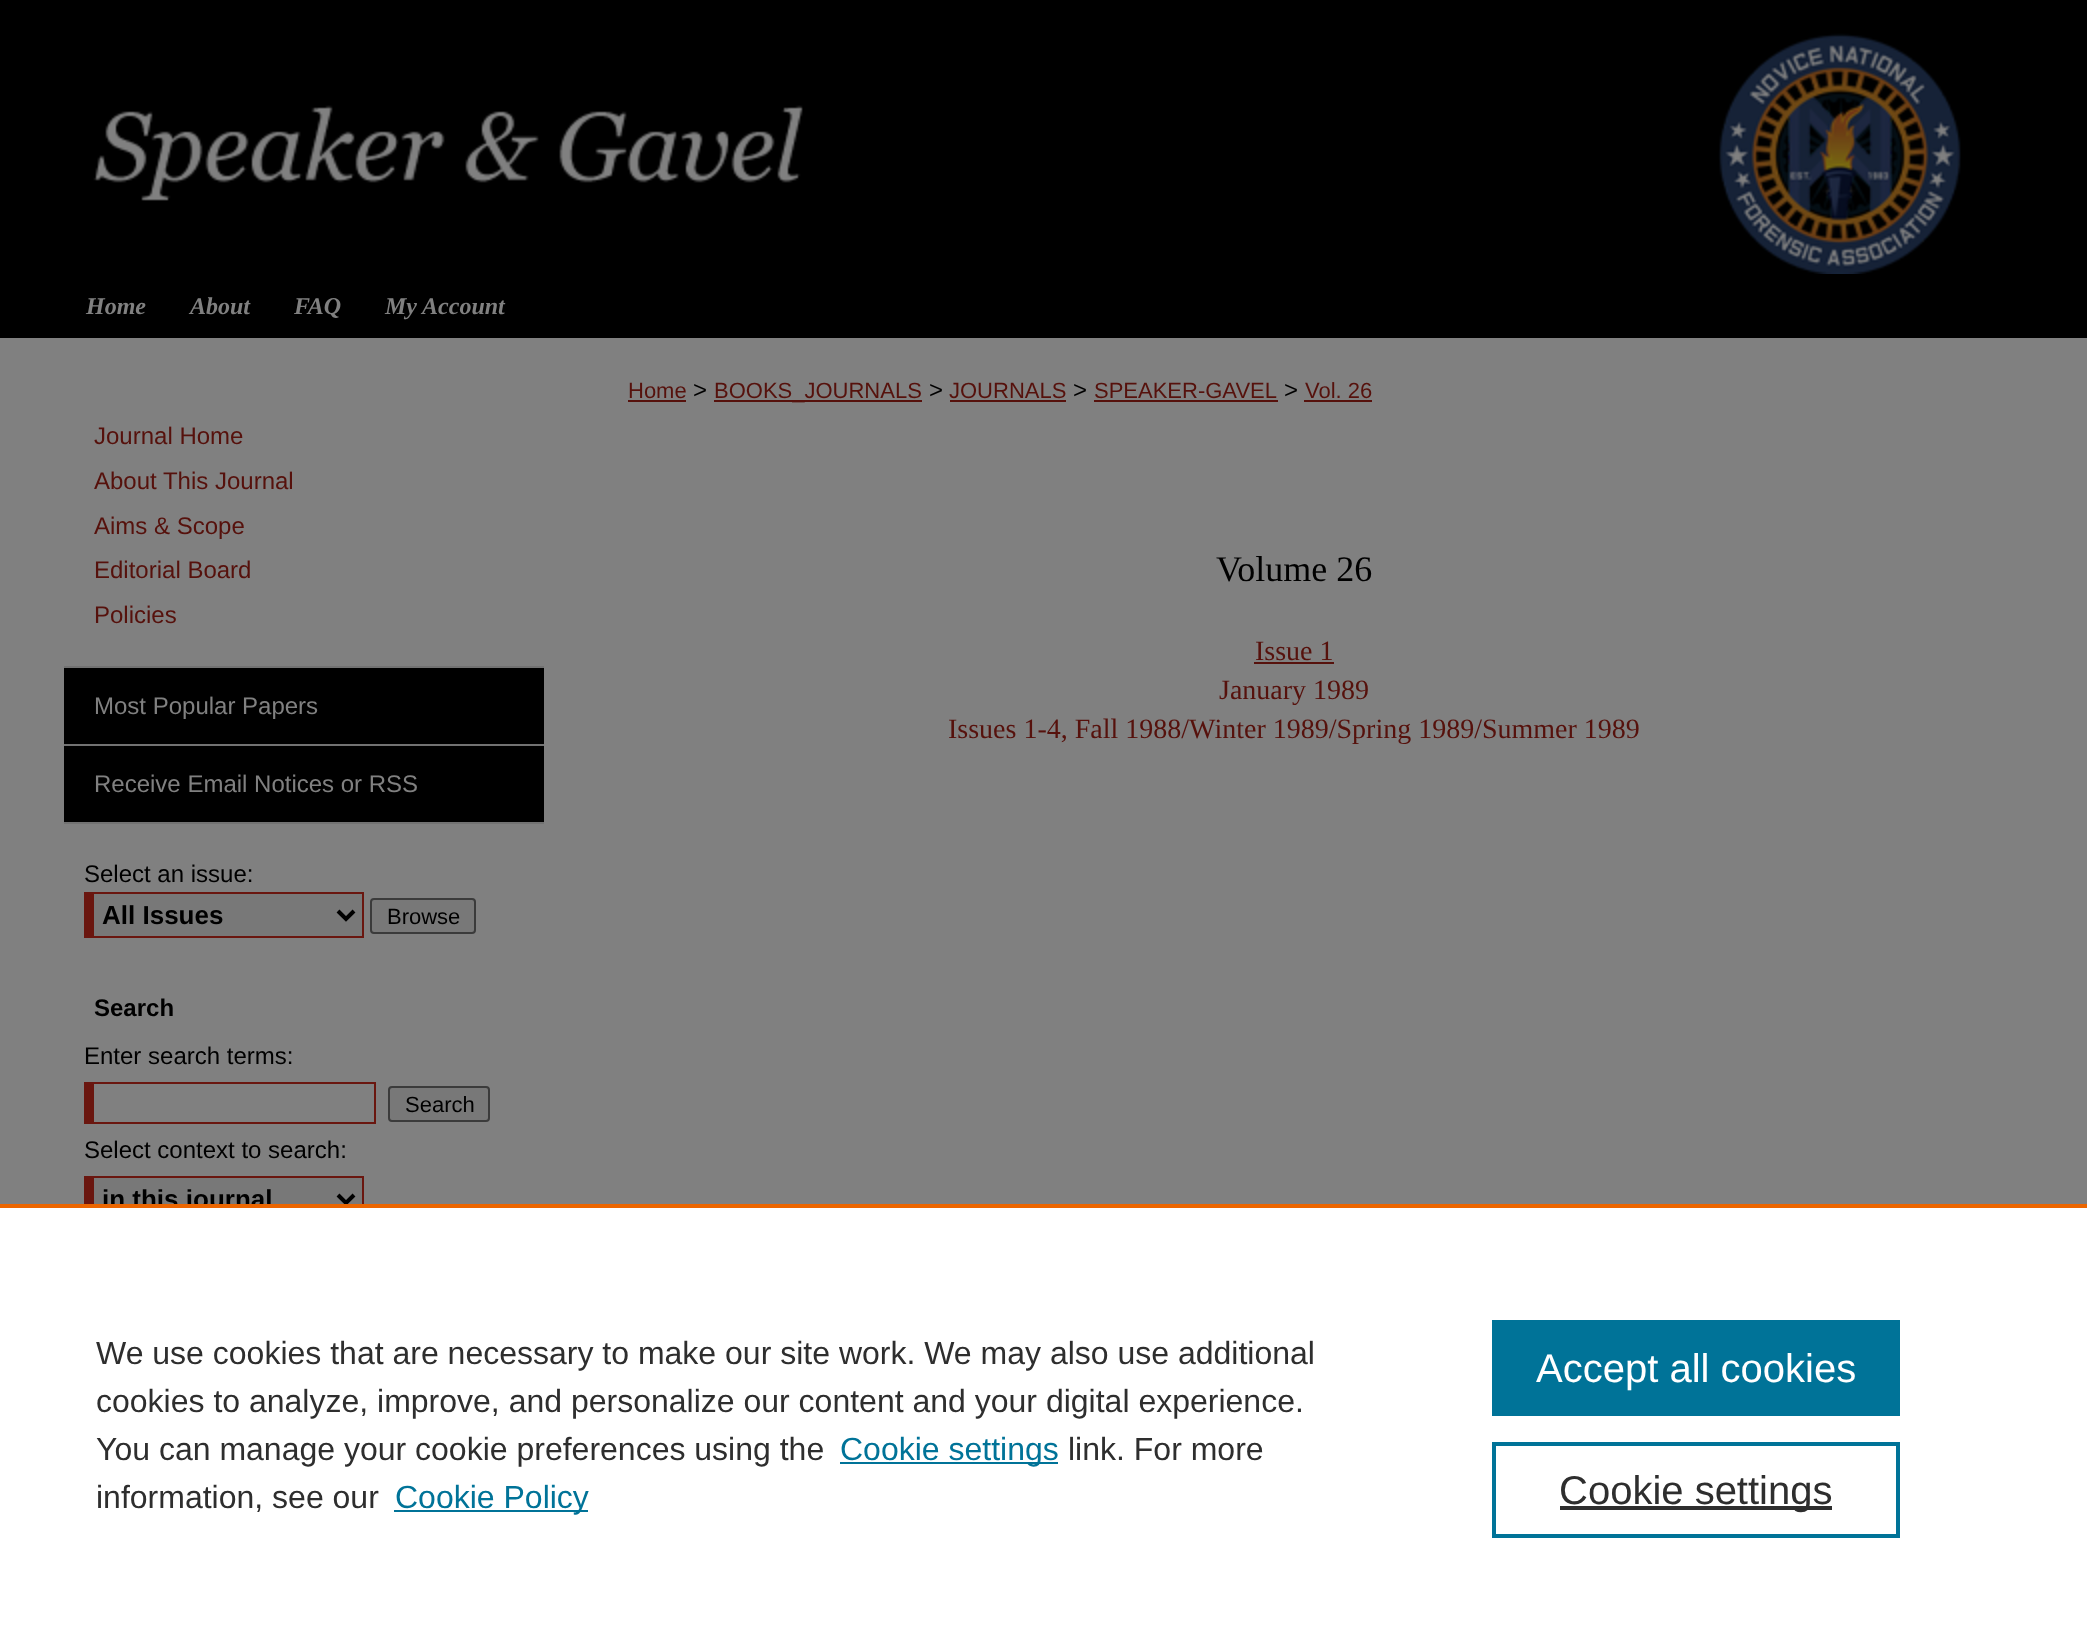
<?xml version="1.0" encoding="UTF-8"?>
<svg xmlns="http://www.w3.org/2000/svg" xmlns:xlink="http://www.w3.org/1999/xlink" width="2087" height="1644">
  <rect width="100%" height="100%" fill="#808080" />
  <rect width="2087" height="338" fill="#000000" />
  <image x="93" y="33" width="1868" height="241" xlink:href="image1.png" />
  <rect x="64" y="666" width="480" height="2" fill="#727272" />
  <rect x="64" y="668" width="480" height="76" fill="#000000" />
  <rect x="64" y="744" width="480" height="2" fill="#727272" />
  <rect x="64" y="746" width="480" height="76" fill="#000000" />
  <rect x="64" y="822" width="480" height="2" fill="#727272" />
  <rect x="94" y="894" width="268" height="42" fill="#787878" />
  <rect x="94" y="892" width="270" height="2" fill="#6a160f" />
  <rect x="362" y="892" width="2" height="46" fill="#6a160f" />
  <rect x="94" y="936" width="270" height="2" fill="#6a160f" />
  <rect x="84" y="892" width="10" height="46" fill="#6a160f" />
  <path d="M 338 911 l 8 8 l 8 -8" fill="none" stroke="#000000" stroke-width="4" />
  <rect x="371" y="899" width="104" height="34" rx="3" fill="#787878" stroke="#3b3b3b" stroke-width="2" />
  <rect x="94" y="1082" width="282" height="2" fill="#6a160f" />
  <rect x="374" y="1082" width="2" height="42" fill="#6a160f" />
  <rect x="94" y="1122" width="282" height="2" fill="#6a160f" />
  <rect x="84" y="1082" width="10" height="42" fill="#6a160f" />
  <rect x="389" y="1087" width="100" height="34" rx="3" fill="#787878" stroke="#3b3b3b" stroke-width="2" />
  <rect x="94" y="1178" width="268" height="26" fill="#787878" />
  <rect x="94" y="1176" width="270" height="2" fill="#6a160f" />
  <rect x="362" y="1176" width="2" height="28" fill="#6a160f" />
  <rect x="84" y="1176" width="10" height="28" fill="#6a160f" />
  <path d="M 338 1195 l 8 8 l 8 -8" fill="none" stroke="#000000" stroke-width="4" />
  <rect x="628" y="400" width="58" height="2" fill="#56110c" />
  <rect x="714" y="400" width="208" height="2" fill="#56110c" />
  <rect x="950" y="400" width="116" height="2" fill="#56110c" />
  <rect x="1094" y="400" width="184" height="2" fill="#56110c" />
  <rect x="1304" y="400" width="68" height="2" fill="#56110c" />
  <rect x="1254" y="662" width="80" height="2" fill="#56110c" />
  <text x="86" y="314" style="font-family: Liberation Serif; font-size: 24px; font-weight: bold; font-style: italic; fill: #808080">Home</text>
  <text x="190" y="314" style="font-family: Liberation Serif; font-size: 24px; font-weight: bold; font-style: italic; fill: #808080">About</text>
  <text x="294" y="314" style="font-family: Liberation Serif; font-size: 24px; font-weight: bold; font-style: italic; fill: #808080">FAQ</text>
  <text x="385" y="314" style="font-family: Liberation Serif; font-size: 24px; font-weight: bold; font-style: italic; fill: #808080">My Account</text>
  <text x="94" y="444" style="font-family: Liberation Sans; font-size: 24px; fill: #56110c">Journal Home</text>
  <text x="94" y="489" style="font-family: Liberation Sans; font-size: 24px; fill: #56110c">About This Journal</text>
  <text x="94" y="534" style="font-family: Liberation Sans; font-size: 24px; fill: #56110c">Aims &amp; Scope</text>
  <text x="94" y="578" style="font-family: Liberation Sans; font-size: 24px; fill: #56110c">Editorial Board</text>
  <text x="94" y="623" style="font-family: Liberation Sans; font-size: 24px; fill: #56110c">Policies</text>
  <text x="94" y="714" style="font-family: Liberation Sans; font-size: 24px; fill: #808080">Most Popular Papers</text>
  <text x="94" y="792" style="font-family: Liberation Sans; font-size: 24px; fill: #808080">Receive Email Notices or RSS</text>
  <text x="84" y="882" style="font-family: Liberation Sans; font-size: 24px; fill: #000000">Select an issue:</text>
  <text x="102" y="924" style="font-family: Liberation Sans; font-size: 26px; font-weight: bold; fill: #000000">All Issues</text>
  <text x="387" y="924" style="font-family: Liberation Sans; font-size: 22px; fill: #000000">Browse</text>
  <text x="94" y="1016" style="font-family: Liberation Sans; font-size: 24px; font-weight: bold; fill: #000000">Search</text>
  <text x="84" y="1064" style="font-family: Liberation Sans; font-size: 24px; fill: #000000">Enter search terms:</text>
  <text x="405" y="1112" style="font-family: Liberation Sans; font-size: 22px; fill: #000000">Search</text>
  <text x="84" y="1158" style="font-family: Liberation Sans; font-size: 24px; fill: #000000">Select context to search:</text>
  <text x="102" y="1208" style="font-family: Liberation Sans; font-size: 26px; font-weight: bold; fill: #000000">in this journal</text>
  <text x="628" y="398" style="font-family: Liberation Sans; font-size: 22px; fill: #56110c">Home</text>
  <text x="693" y="398" style="font-family: Liberation Sans; font-size: 24px; fill: #000000">&gt;</text>
  <text x="714" y="398" style="font-family: Liberation Sans; font-size: 22px; fill: #56110c">BOOKS_JOURNALS</text>
  <text x="929" y="398" style="font-family: Liberation Sans; font-size: 24px; fill: #000000">&gt;</text>
  <text x="949" y="398" style="font-family: Liberation Sans; font-size: 22px; fill: #56110c">JOURNALS</text>
  <text x="1073" y="398" style="font-family: Liberation Sans; font-size: 24px; fill: #000000">&gt;</text>
  <text x="1094" y="398" style="font-family: Liberation Sans; font-size: 22px; fill: #56110c">SPEAKER-GAVEL</text>
  <text x="1284" y="398" style="font-family: Liberation Sans; font-size: 24px; fill: #000000">&gt;</text>
  <text x="1305" y="398" style="font-family: Liberation Sans; font-size: 22px; fill: #56110c">Vol. 26</text>
  <text x="1216" y="581" style="font-family: Liberation Serif; font-size: 36px; fill: #000000">Volume 26</text>
  <text x="1255" y="660" style="font-family: Liberation Serif; font-size: 28px; fill: #56110c">Issue 1</text>
  <text x="1219" y="699" style="font-family: Liberation Serif; font-size: 28px; fill: #56110c">January 1989</text>
  <text x="948" y="738" style="font-family: Liberation Serif; font-size: 28px; fill: #56110c">Issues 1-4, Fall 1988/Winter 1989/Spring 1989/Summer 1989</text>
  <rect y="1208" width="2087" height="436" fill="#ffffff" />
  <rect y="1204" width="2087" height="4" fill="#eb6500" />
  <text x="96" y="1364" style="font-family: Liberation Sans; font-size: 32px; fill: #2e2e2e">We use cookies that are necessary to make our site work. We may also use additional</text>
  <text x="96" y="1412" style="font-family: Liberation Sans; font-size: 32px; fill: #2e2e2e">cookies to analyze, improve, and personalize our content and your digital experience.</text>
  <text x="96" y="1460" style="font-family: Liberation Sans; font-size: 32px; fill: #2e2e2e">You can manage your cookie preferences using the</text>
  <rect x="840" y="1462" width="218" height="2" fill="#007398" />
  <text x="840" y="1460" style="font-family: Liberation Sans; font-size: 32px; fill: #007398">Cookie settings</text>
  <text x="1068" y="1460" style="font-family: Liberation Sans; font-size: 32px; fill: #2e2e2e">link. For more</text>
  <text x="96" y="1508" style="font-family: Liberation Sans; font-size: 32px; fill: #2e2e2e">information, see our</text>
  <rect x="394" y="1510" width="194" height="2" fill="#007398" />
  <text x="395" y="1508" style="font-family: Liberation Sans; font-size: 32px; fill: #007398">Cookie Policy</text>
  <rect x="1492" y="1320" width="408" height="96" fill="#007398" />
  <text x="1536" y="1382" style="font-family: Liberation Sans; font-size: 40px; fill: #ffffff">Accept all cookies</text>
  <rect x="1494" y="1444" width="404" height="92" fill="none" stroke="#007398" stroke-width="4" />
  <rect x="1560" y="1506" width="272" height="4" fill="#2e2e2e" />
  <text x="1559" y="1504" style="font-family: Liberation Sans; font-size: 40px; fill: #2e2e2e">Cookie settings</text>
</svg>
